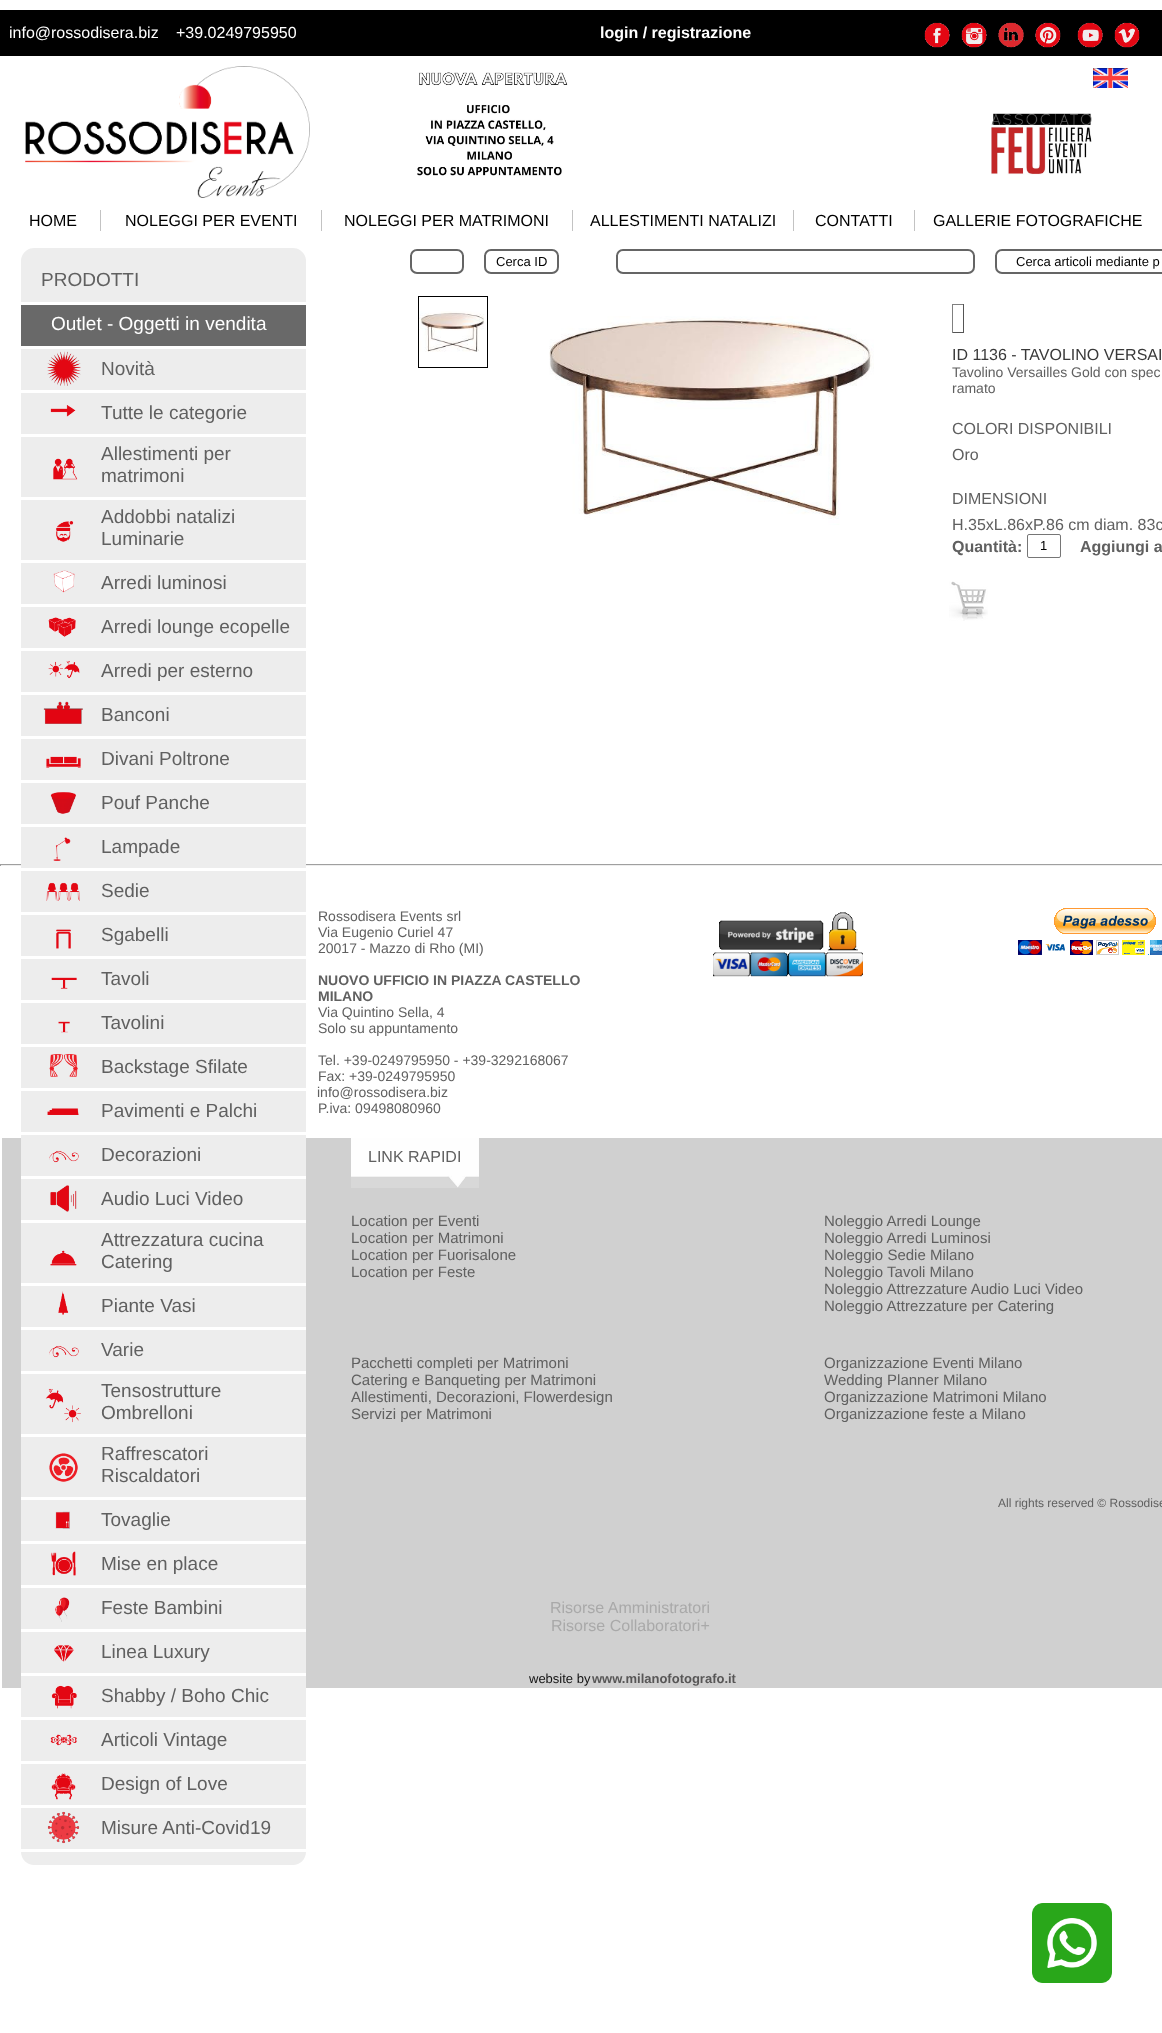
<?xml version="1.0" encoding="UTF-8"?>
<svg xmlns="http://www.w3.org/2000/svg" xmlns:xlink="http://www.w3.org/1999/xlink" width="1162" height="2033">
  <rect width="100%" height="100%" fill="#ffffff" />
  <rect y="10" width="1162" height="46" fill="#000000" />
  <image x="924" y="22" width="26" height="26" xlink:href="image1.png" />
  <image x="961" y="22" width="26" height="26" xlink:href="image2.png" />
  <image x="998" y="22" width="26" height="26" xlink:href="image3.png" />
  <image x="1035" y="22" width="26" height="26" xlink:href="image4.png" />
  <image x="1077" y="22" width="26" height="26" xlink:href="image5.png" />
  <image x="1114" y="22" width="26" height="26" xlink:href="image6.png" />
  <image x="25" y="66" width="285" height="132" xlink:href="image7.png" />
  <image x="417" y="72" width="151" height="104" xlink:href="image8.png" />
  <image x="1093" y="68" width="35" height="20" xlink:href="image9.png" />
  <image x="991" y="113" width="101" height="62" xlink:href="image10.png" />
  <rect x="100" y="210" width="1" height="21" fill="#c3c3c3" />
  <rect x="321" y="210" width="1" height="21" fill="#c3c3c3" />
  <rect x="572" y="210" width="1" height="21" fill="#c3c3c3" />
  <rect x="793" y="210" width="1" height="21" fill="#c3c3c3" />
  <rect x="914" y="210" width="1" height="21" fill="#c3c3c3" />
  <image x="1032" y="1903" width="80" height="80" xlink:href="image11.png" />
  <path d="M 34 248 h 259 c 7 0 13 6 13 13 h -285 c 0 -7 6 -13 13 -13 z" fill="#ededed" />
  <rect x="21" y="261" width="285" height="41" fill="#ededed" />
  <rect x="21" y="305" width="285" height="41" fill="#696969" />
  <rect x="21" y="349" width="285" height="41" fill="#ededed" />
  <image x="47" y="351" width="34" height="35" xlink:href="image12.png" />
  <rect x="21" y="393" width="285" height="41" fill="#ededed" />
  <image x="50" y="405" width="26" height="12" xlink:href="image13.png" />
  <rect x="21" y="437" width="285" height="60" fill="#ededed" />
  <image x="53" y="458" width="25" height="22" xlink:href="image14.png" />
  <rect x="21" y="500" width="285" height="60" fill="#ededed" />
  <image x="56" y="521" width="18" height="21" xlink:href="image15.png" />
  <rect x="21" y="563" width="285" height="41" fill="#ededed" />
  <image x="53" y="570" width="22" height="23" xlink:href="image16.png" />
  <rect x="21" y="607" width="285" height="41" fill="#ededed" />
  <image x="48" y="617" width="28" height="20" xlink:href="image17.png" />
  <rect x="21" y="651" width="285" height="41" fill="#ededed" />
  <image x="48" y="660" width="32" height="19" xlink:href="image18.png" />
  <rect x="21" y="695" width="285" height="41" fill="#ededed" />
  <image x="43" y="701" width="40" height="23" xlink:href="image19.png" />
  <rect x="21" y="739" width="285" height="41" fill="#ededed" />
  <image x="46" y="756" width="35" height="12" xlink:href="image20.png" />
  <rect x="21" y="783" width="285" height="41" fill="#ededed" />
  <image x="50" y="792" width="26" height="22" xlink:href="image21.png" />
  <rect y="864" width="1162" height="1" fill="#9f9f9f" />
  <rect y="865" width="1162" height="1" fill="#eeeeee" />
  <rect x="21" y="827" width="285" height="41" fill="#ededed" />
  <image x="53" y="837" width="18" height="24" xlink:href="image22.png" />
  <rect x="21" y="871" width="285" height="41" fill="#ededed" />
  <image x="46" y="882" width="34" height="19" xlink:href="image23.png" />
  <rect x="21" y="915" width="285" height="41" fill="#ededed" />
  <image x="56" y="929" width="15" height="20" xlink:href="image24.png" />
  <rect x="21" y="959" width="285" height="41" fill="#ededed" />
  <image x="51" y="977" width="26" height="12" xlink:href="image25.png" />
  <rect x="21" y="1003" width="285" height="41" fill="#ededed" />
  <image x="58" y="1021" width="12" height="12" xlink:href="image26.png" />
  <rect x="21" y="1047" width="285" height="41" fill="#ededed" />
  <image x="49" y="1054" width="29" height="23" xlink:href="image27.png" />
  <rect x="21" y="1091" width="285" height="41" fill="#ededed" />
  <image x="47" y="1108" width="32" height="7" xlink:href="image28.png" />
  <rect x="2" y="1138" width="1160" height="550" fill="#d0d0d0" />
  <rect x="21" y="1135" width="285" height="41" fill="#ededed" />
  <rect x="21" y="1176" width="285" height="3" fill="#ffffff" />
  <image x="49" y="1150" width="30" height="13" xlink:href="image29.png" />
  <rect x="21" y="1179" width="285" height="41" fill="#ededed" />
  <rect x="21" y="1220" width="285" height="3" fill="#ffffff" />
  <image x="50" y="1185" width="27" height="27" xlink:href="image30.png" />
  <rect x="21" y="1223" width="285" height="60" fill="#ededed" />
  <rect x="21" y="1283" width="285" height="3" fill="#ffffff" />
  <image x="50" y="1250" width="27" height="16" xlink:href="image31.png" />
  <rect x="21" y="1286" width="285" height="41" fill="#ededed" />
  <rect x="21" y="1327" width="285" height="3" fill="#ffffff" />
  <image x="58" y="1291" width="11" height="24" xlink:href="image32.png" />
  <rect x="21" y="1330" width="285" height="41" fill="#ededed" />
  <rect x="21" y="1371" width="285" height="3" fill="#ffffff" />
  <image x="49" y="1345" width="30" height="13" xlink:href="image29.png" />
  <rect x="21" y="1374" width="285" height="60" fill="#ededed" />
  <rect x="21" y="1434" width="285" height="3" fill="#ffffff" />
  <image x="45" y="1388" width="36" height="35" xlink:href="image33.png" />
  <rect x="21" y="1437" width="285" height="60" fill="#ededed" />
  <rect x="21" y="1497" width="285" height="3" fill="#ffffff" />
  <image x="49" y="1453" width="29" height="29" xlink:href="image34.png" />
  <rect x="21" y="1500" width="285" height="41" fill="#ededed" />
  <rect x="21" y="1541" width="285" height="3" fill="#ffffff" />
  <image x="55" y="1511" width="15" height="18" xlink:href="image35.png" />
  <rect x="21" y="1544" width="285" height="41" fill="#ededed" />
  <rect x="21" y="1585" width="285" height="3" fill="#ffffff" />
  <image x="51" y="1551" width="25" height="25" xlink:href="image36.png" />
  <rect x="21" y="1588" width="285" height="41" fill="#ededed" />
  <rect x="21" y="1629" width="285" height="3" fill="#ffffff" />
  <image x="55" y="1597" width="15" height="25" xlink:href="image37.png" />
  <rect x="21" y="1632" width="285" height="41" fill="#ededed" />
  <rect x="21" y="1673" width="285" height="3" fill="#ffffff" />
  <image x="54" y="1645" width="20" height="17" xlink:href="image38.png" />
  <rect x="21" y="1676" width="285" height="41" fill="#ededed" />
  <image x="51" y="1685" width="26" height="24" xlink:href="image39.png" />
  <rect x="21" y="1720" width="285" height="41" fill="#ededed" />
  <image x="50" y="1734" width="27" height="12" xlink:href="image40.png" />
  <rect x="21" y="1764" width="285" height="41" fill="#ededed" />
  <image x="51" y="1773" width="25" height="27" xlink:href="image41.png" />
  <rect x="21" y="1808" width="285" height="41" fill="#ededed" />
  <image x="47" y="1811" width="33" height="33" xlink:href="image42.png" />
  <path d="M 21 1852 h 285 c 0 7 -6 13 -13 13 h -259 c -7 0 -13 -6 -13 -13 z" fill="#ededed" />
  <rect x="411" y="250" width="52" height="23" rx="6" fill="none" stroke="#656565" stroke-width="2" />
  <rect x="485" y="250" width="73" height="23" rx="6" fill="none" stroke="#656565" stroke-width="2" />
  <rect x="617" y="250" width="357" height="23" rx="6" fill="none" stroke="#656565" stroke-width="2" />
  <rect x="996" y="250" width="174" height="23" rx="6" fill="none" stroke="#656565" stroke-width="2" />
  <image x="419" y="311" width="66" height="41" xlink:href="image43.png" />
  <rect x="418.5" y="296.5" width="69" height="71" fill="none" stroke="#000000" />
  <image x="549" y="316" width="325" height="209" xlink:href="image44.png" />
  <rect x="952" y="304" width="12" height="1" fill="#808080" />
  <rect x="963" y="304" width="1" height="29" fill="#555555" />
  <rect x="952" y="332" width="12" height="1" fill="#555555" />
  <rect x="952" y="304" width="1" height="29" fill="#808080" />
  <rect x="1027.5" y="534.5" width="33" height="23" rx="1.5" fill="none" stroke="#767676" />
  <image x="949" y="581" width="39" height="40" xlink:href="image45.png" />
  <rect y="864" width="1" height="2" fill="#9f9f9f" />
  <image x="713" y="912" width="150" height="65" xlink:href="image46.png" />
  <image x="1018" y="908" width="144" height="47" xlink:href="image47.png" />
  <image x="351" y="1138" width="128" height="50" xlink:href="image48.png" />
  <text x="9" y="38" style="font-family: Liberation Sans; font-size: 16px; fill: #ffffff">info@rossodisera.biz</text>
  <text x="176" y="38" style="font-family: Liberation Sans; font-size: 16px; fill: #ffffff">+39.0249795950</text>
  <text x="600" y="38" style="font-family: Liberation Sans; font-size: 16px; font-weight: bold; fill: #ffffff">login / registrazione</text>
  <text x="29" y="226" style="font-family: Liberation Sans; font-size: 16px; fill: #000000">HOME</text>
  <text x="125" y="226" style="font-family: Liberation Sans; font-size: 16px; fill: #000000">NOLEGGI PER EVENTI</text>
  <text x="344" y="226" style="font-family: Liberation Sans; font-size: 16px; fill: #000000">NOLEGGI PER MATRIMONI</text>
  <text x="590" y="226" style="font-family: Liberation Sans; font-size: 16px; fill: #000000">ALLESTIMENTI NATALIZI</text>
  <text x="815" y="226" style="font-family: Liberation Sans; font-size: 16px; fill: #000000">CONTATTI</text>
  <text x="933" y="226" style="font-family: Liberation Sans; font-size: 16px; fill: #000000">GALLERIE FOTOGRAFICHE</text>
  <text x="41" y="286" style="font-family: Liberation Sans; font-size: 19px; fill: #606060">PRODOTTI</text>
  <text x="51" y="330" style="font-family: Liberation Sans; font-size: 19px; fill: #ffffff">Outlet - Oggetti in vendita</text>
  <text x="101" y="375" style="font-family: Liberation Sans; font-size: 19px; fill: #606060">Novità</text>
  <text x="101" y="419" style="font-family: Liberation Sans; font-size: 19px; fill: #606060">Tutte le categorie</text>
  <text x="101" y="460" style="font-family: Liberation Sans; font-size: 19px; fill: #606060">Allestimenti per</text>
  <text x="101" y="482" style="font-family: Liberation Sans; font-size: 19px; fill: #606060">matrimoni</text>
  <text x="101" y="523" style="font-family: Liberation Sans; font-size: 19px; fill: #606060">Addobbi natalizi</text>
  <text x="101" y="545" style="font-family: Liberation Sans; font-size: 19px; fill: #606060">Luminarie</text>
  <text x="101" y="589" style="font-family: Liberation Sans; font-size: 19px; fill: #606060">Arredi luminosi</text>
  <text x="101" y="633" style="font-family: Liberation Sans; font-size: 19px; fill: #606060">Arredi lounge ecopelle</text>
  <text x="101" y="677" style="font-family: Liberation Sans; font-size: 19px; fill: #606060">Arredi per esterno</text>
  <text x="101" y="721" style="font-family: Liberation Sans; font-size: 19px; fill: #606060">Banconi</text>
  <text x="101" y="765" style="font-family: Liberation Sans; font-size: 19px; fill: #606060">Divani Poltrone</text>
  <text x="101" y="809" style="font-family: Liberation Sans; font-size: 19px; fill: #606060">Pouf Panche</text>
  <text x="101" y="853" style="font-family: Liberation Sans; font-size: 19px; fill: #606060">Lampade</text>
  <text x="101" y="897" style="font-family: Liberation Sans; font-size: 19px; fill: #606060">Sedie</text>
  <text x="101" y="941" style="font-family: Liberation Sans; font-size: 19px; fill: #606060">Sgabelli</text>
  <text x="101" y="985" style="font-family: Liberation Sans; font-size: 19px; fill: #606060">Tavoli</text>
  <text x="101" y="1029" style="font-family: Liberation Sans; font-size: 19px; fill: #606060">Tavolini</text>
  <text x="101" y="1073" style="font-family: Liberation Sans; font-size: 19px; fill: #606060">Backstage Sfilate</text>
  <text x="101" y="1117" style="font-family: Liberation Sans; font-size: 19px; fill: #606060">Pavimenti e Palchi</text>
  <text x="101" y="1161" style="font-family: Liberation Sans; font-size: 19px; fill: #606060">Decorazioni</text>
  <text x="101" y="1205" style="font-family: Liberation Sans; font-size: 19px; fill: #606060">Audio Luci Video</text>
  <text x="101" y="1246" style="font-family: Liberation Sans; font-size: 19px; fill: #606060">Attrezzatura cucina</text>
  <text x="101" y="1268" style="font-family: Liberation Sans; font-size: 19px; fill: #606060">Catering</text>
  <text x="101" y="1312" style="font-family: Liberation Sans; font-size: 19px; fill: #606060">Piante Vasi</text>
  <text x="101" y="1356" style="font-family: Liberation Sans; font-size: 19px; fill: #606060">Varie</text>
  <text x="101" y="1397" style="font-family: Liberation Sans; font-size: 19px; fill: #606060">Tensostrutture</text>
  <text x="101" y="1419" style="font-family: Liberation Sans; font-size: 19px; fill: #606060">Ombrelloni</text>
  <text x="101" y="1460" style="font-family: Liberation Sans; font-size: 19px; fill: #606060">Raffrescatori</text>
  <text x="101" y="1482" style="font-family: Liberation Sans; font-size: 19px; fill: #606060">Riscaldatori</text>
  <text x="101" y="1526" style="font-family: Liberation Sans; font-size: 19px; fill: #606060">Tovaglie</text>
  <text x="101" y="1570" style="font-family: Liberation Sans; font-size: 19px; fill: #606060">Mise en place</text>
  <text x="101" y="1614" style="font-family: Liberation Sans; font-size: 19px; fill: #606060">Feste Bambini</text>
  <text x="101" y="1658" style="font-family: Liberation Sans; font-size: 19px; fill: #606060">Linea Luxury</text>
  <text x="101" y="1702" style="font-family: Liberation Sans; font-size: 19px; fill: #606060">Shabby / Boho Chic</text>
  <text x="101" y="1746" style="font-family: Liberation Sans; font-size: 19px; fill: #606060">Articoli Vintage</text>
  <text x="101" y="1790" style="font-family: Liberation Sans; font-size: 19px; fill: #606060">Design of Love</text>
  <text x="101" y="1834" style="font-family: Liberation Sans; font-size: 19px; fill: #606060">Misure Anti-Covid19</text>
  <text x="496" y="266" style="font-family: Liberation Sans; font-size: 13px; fill: #000000">Cerca ID</text>
  <text x="1016" y="266" style="font-family: Liberation Sans; font-size: 13px; fill: #000000">Cerca articoli mediante p</text>
  <text x="952" y="360" style="font-family: Liberation Sans; font-size: 16px; fill: #393939">ID 1136 - TAVOLINO VERSAI</text>
  <text x="952" y="377" style="font-family: Liberation Sans; font-size: 14px; fill: #606060">Tavolino Versailles Gold con spec</text>
  <text x="952" y="393" style="font-family: Liberation Sans; font-size: 14px; fill: #606060">ramato</text>
  <text x="952" y="434" style="font-family: Liberation Sans; font-size: 16px; fill: #606060">COLORI DISPONIBILI</text>
  <text x="952" y="460" style="font-family: Liberation Sans; font-size: 16px; fill: #606060">Oro</text>
  <text x="952" y="504" style="font-family: Liberation Sans; font-size: 16px; fill: #606060">DIMENSIONI</text>
  <text x="952" y="530" style="font-family: Liberation Sans; font-size: 16px; fill: #606060">H.35xL.86xP.86 cm diam. 83c</text>
  <text x="952" y="552" style="font-family: Liberation Sans; font-size: 16px; font-weight: bold; fill: #606060">Quantità:</text>
  <text x="1040" y="550" style="font-family: Liberation Sans; font-size: 13px; fill: #000000">1</text>
  <text x="1080" y="552" style="font-family: Liberation Sans; font-size: 16px; font-weight: bold; fill: #606060">Aggiungi a</text>
  <text x="318" y="921" style="font-family: Liberation Sans; font-size: 14px; fill: #606060">Rossodisera Events srl</text>
  <text x="318" y="937" style="font-family: Liberation Sans; font-size: 14px; fill: #606060">Via Eugenio Curiel 47</text>
  <text x="318" y="953" style="font-family: Liberation Sans; font-size: 14px; fill: #606060">20017 - Mazzo di Rho (MI)</text>
  <text x="318" y="985" style="font-family: Liberation Sans; font-size: 14px; font-weight: bold; fill: #606060">NUOVO UFFICIO IN PIAZZA CASTELLO</text>
  <text x="318" y="1001" style="font-family: Liberation Sans; font-size: 14px; font-weight: bold; fill: #606060">MILANO</text>
  <text x="318" y="1017" style="font-family: Liberation Sans; font-size: 14px; fill: #606060">Via Quintino Sella, 4</text>
  <text x="318" y="1033" style="font-family: Liberation Sans; font-size: 14px; fill: #606060">Solo su appuntamento</text>
  <text x="318" y="1065" style="font-family: Liberation Sans; font-size: 14px; fill: #606060">Tel. +39-0249795950 - +39-3292168067</text>
  <text x="318" y="1081" style="font-family: Liberation Sans; font-size: 14px; fill: #606060">Fax: +39-0249795950</text>
  <text x="317" y="1097" style="font-family: Liberation Sans; font-size: 14px; fill: #606060">info@rossodisera.biz</text>
  <text x="318" y="1113" style="font-family: Liberation Sans; font-size: 14px; fill: #606060">P.iva: 09498080960</text>
  <text x="368" y="1162" style="font-family: Liberation Sans; font-size: 16px; fill: #606060">LINK RAPIDI</text>
  <text x="351" y="1226" style="font-family: Liberation Sans; font-size: 15px; fill: #606060">Location per Eventi</text>
  <text x="351" y="1243" style="font-family: Liberation Sans; font-size: 15px; fill: #606060">Location per Matrimoni</text>
  <text x="351" y="1260" style="font-family: Liberation Sans; font-size: 15px; fill: #606060">Location per Fuorisalone</text>
  <text x="351" y="1277" style="font-family: Liberation Sans; font-size: 15px; fill: #606060">Location per Feste</text>
  <text x="824" y="1226" style="font-family: Liberation Sans; font-size: 15px; fill: #606060">Noleggio Arredi Lounge</text>
  <text x="824" y="1243" style="font-family: Liberation Sans; font-size: 15px; fill: #606060">Noleggio Arredi Luminosi</text>
  <text x="824" y="1260" style="font-family: Liberation Sans; font-size: 15px; fill: #606060">Noleggio Sedie Milano</text>
  <text x="824" y="1277" style="font-family: Liberation Sans; font-size: 15px; fill: #606060">Noleggio Tavoli Milano</text>
  <text x="824" y="1294" style="font-family: Liberation Sans; font-size: 15px; fill: #606060">Noleggio Attrezzature Audio Luci Video</text>
  <text x="824" y="1311" style="font-family: Liberation Sans; font-size: 15px; fill: #606060">Noleggio Attrezzature per Catering</text>
  <text x="351" y="1368" style="font-family: Liberation Sans; font-size: 15px; fill: #606060">Pacchetti completi per Matrimoni</text>
  <text x="351" y="1385" style="font-family: Liberation Sans; font-size: 15px; fill: #606060">Catering e Banqueting per Matrimoni</text>
  <text x="351" y="1402" style="font-family: Liberation Sans; font-size: 15px; fill: #606060">Allestimenti, Decorazioni, Flowerdesign</text>
  <text x="351" y="1419" style="font-family: Liberation Sans; font-size: 15px; fill: #606060">Servizi per Matrimoni</text>
  <text x="824" y="1368" style="font-family: Liberation Sans; font-size: 15px; fill: #606060">Organizzazione Eventi Milano</text>
  <text x="824" y="1385" style="font-family: Liberation Sans; font-size: 15px; fill: #606060">Wedding Planner Milano</text>
  <text x="824" y="1402" style="font-family: Liberation Sans; font-size: 15px; fill: #606060">Organizzazione Matrimoni Milano</text>
  <text x="824" y="1419" style="font-family: Liberation Sans; font-size: 15px; fill: #606060">Organizzazione feste a Milano</text>
  <text x="998" y="1507" style="font-family: Liberation Sans; font-size: 12px; fill: #606060">All rights reserved © Rossodise</text>
  <text x="550" y="1613" style="font-family: Liberation Sans; font-size: 16px; fill: #a9a9a9">Risorse Amministratori</text>
  <text x="551" y="1631" style="font-family: Liberation Sans; font-size: 16px; fill: #a9a9a9">Risorse Collaboratori+</text>
  <text x="529" y="1683" style="font-family: Liberation Sans; font-size: 13px; fill: #121212">website by</text>
  <text x="592" y="1683" style="font-family: Liberation Sans; font-size: 13px; font-weight: bold; fill: #575656">www.milanofotografo.it</text>
</svg>
